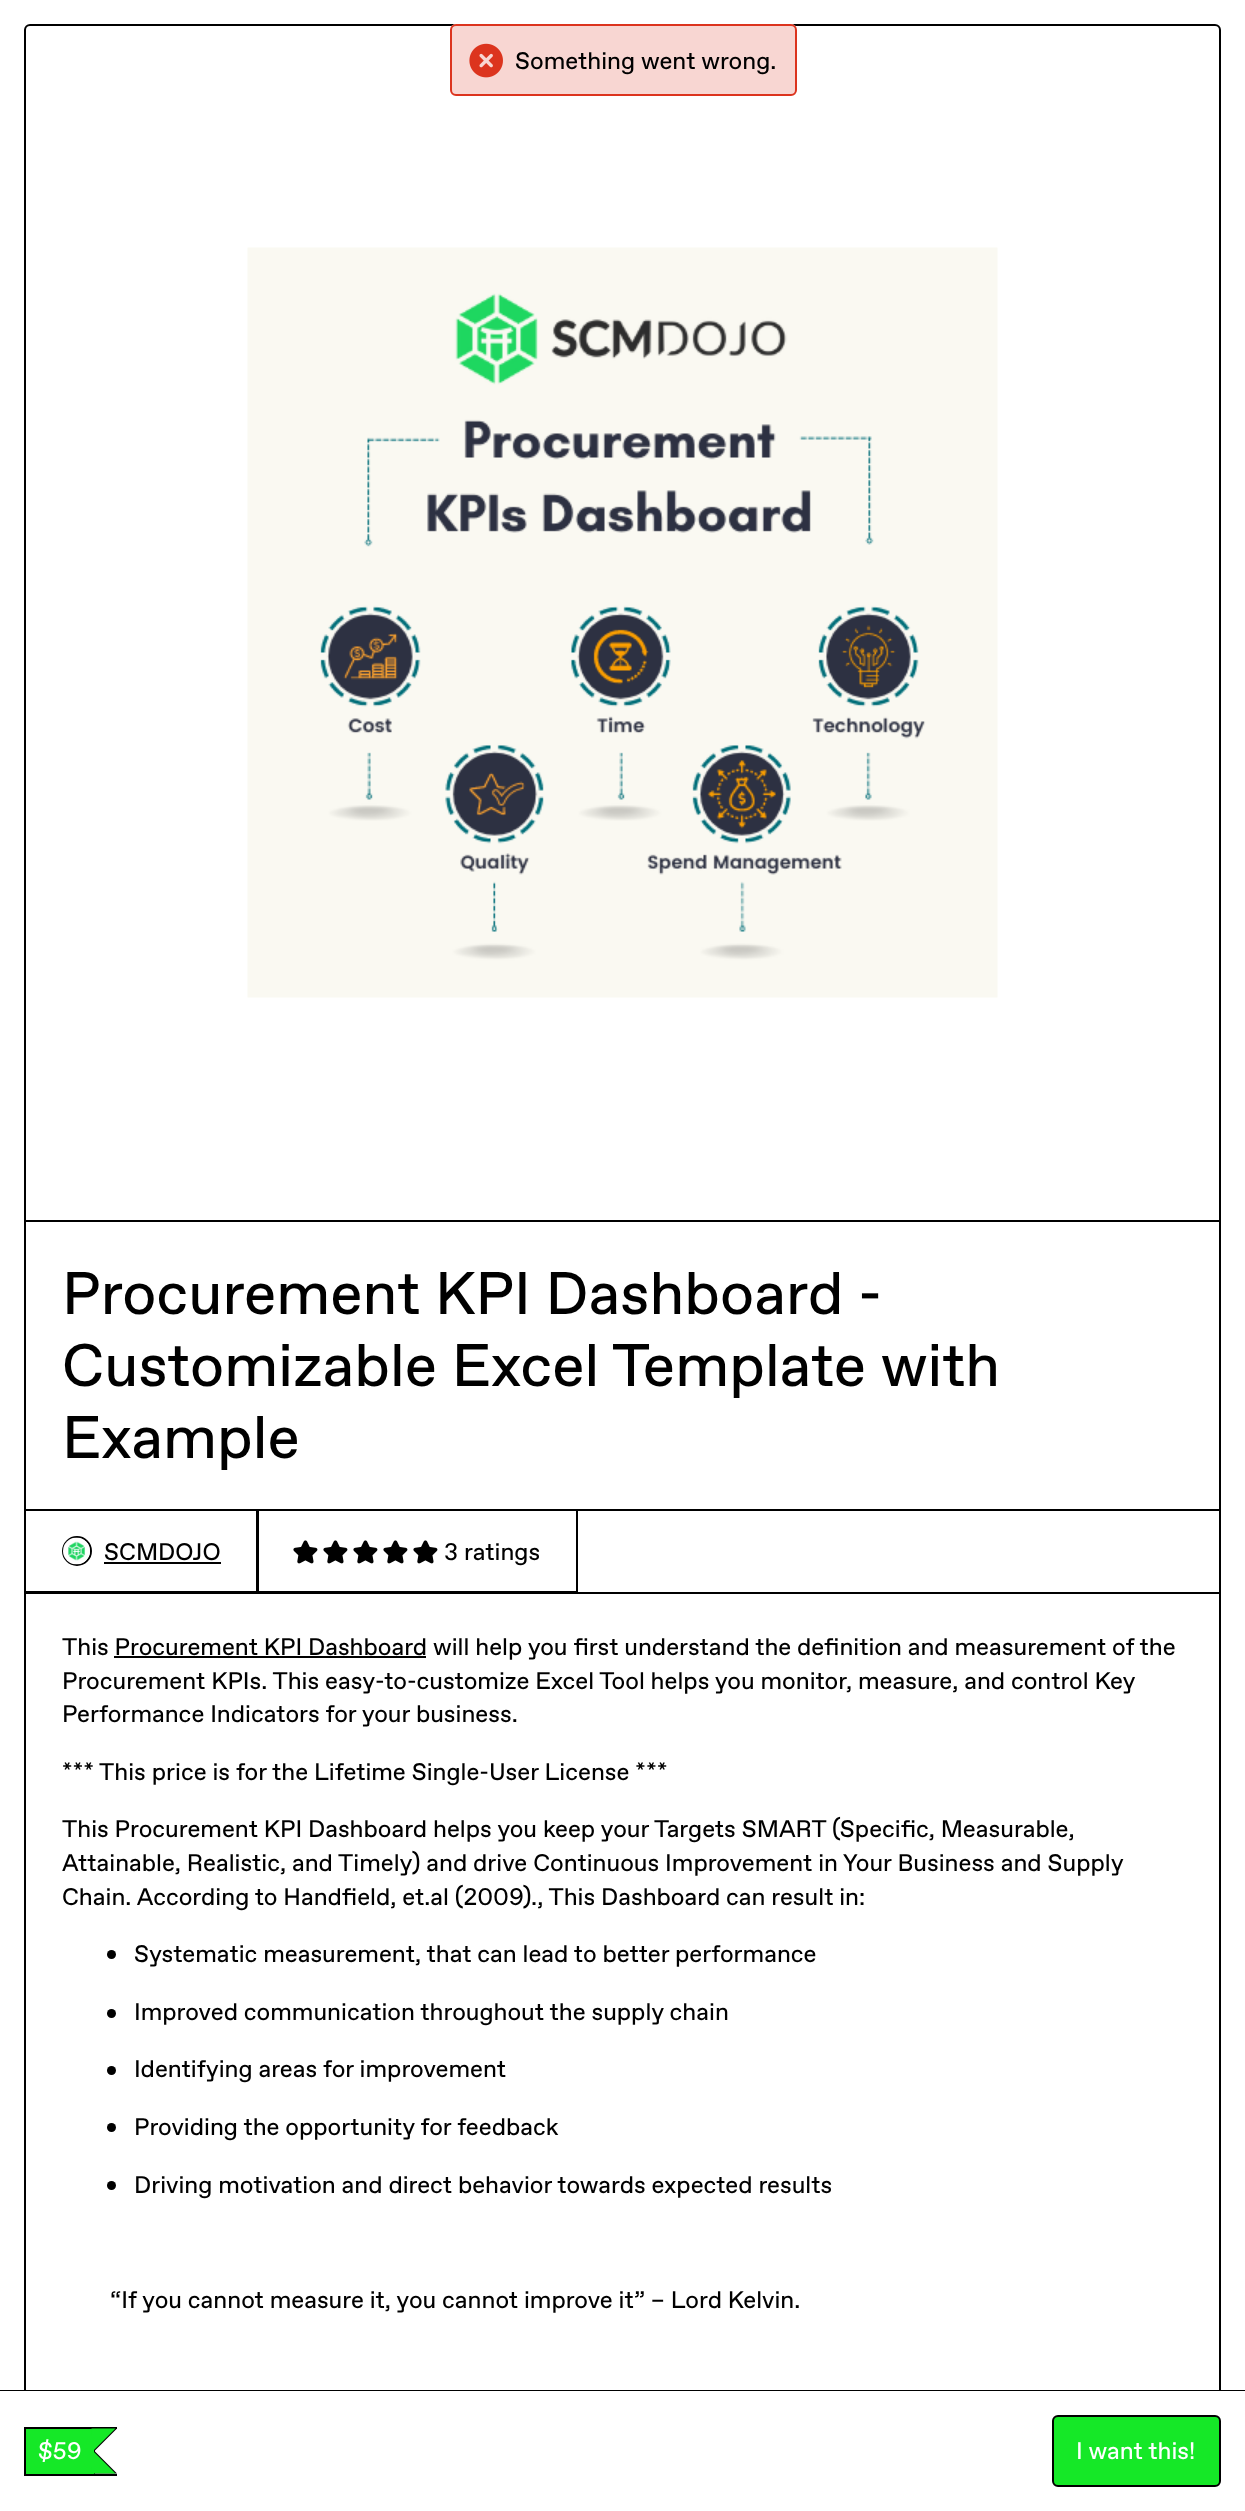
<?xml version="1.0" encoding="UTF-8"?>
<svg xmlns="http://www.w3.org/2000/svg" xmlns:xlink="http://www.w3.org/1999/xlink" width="1245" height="2511">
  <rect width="100%" height="100%" fill="#ffffff" />
  <rect x="25" y="25" width="1195" height="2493" rx="5" fill="none" stroke="#000000" stroke-width="2" />
  <rect x="450" y="24" width="347" height="72" rx="6" fill="#ffffff" />
  <rect x="451" y="25" width="345" height="70" rx="5" fill="#dc341e" fill-opacity="0.2" stroke="#dc341e" stroke-width="2" />
  <image x="469" y="43" width="34" height="35" xlink:href="image1.png" />
  <rect x="26" y="1220" width="1194" height="2" fill="#000000" />
  <image x="247" y="247" width="751" height="751" xlink:href="image2.png" />
  <rect x="578" y="1509" width="642" height="2" fill="#000000" />
  <rect x="26" y="1592" width="1194" height="2" fill="#000000" />
  <rect x="25" y="1510" width="232" height="82" fill="none" stroke="#000000" stroke-width="2" />
  <circle cx="77" cy="1551" r="14" fill="none" stroke="#000000" stroke-width="2" />
  <image x="63" y="1537" width="27" height="28" xlink:href="image3.png" />
  <rect x="104" y="1562" width="117" height="2" fill="#000000" />
  <rect x="258" y="1510" width="319" height="82" fill="none" stroke="#000000" stroke-width="2" />
  <image x="293" y="1540" width="25" height="24" xlink:href="image4.png" />
  <image x="323" y="1540" width="25" height="24" xlink:href="image4.png" />
  <image x="353" y="1540" width="25" height="24" xlink:href="image4.png" />
  <image x="383" y="1540" width="25" height="24" xlink:href="image4.png" />
  <image x="413" y="1540" width="25" height="24" xlink:href="image4.png" />
  <rect x="114" y="1656" width="312" height="2" fill="#000000" />
  <circle cx="111.5" cy="1954.5" r="4.5" fill="#000000" />
  <circle cx="111.5" cy="2013.5" r="4.5" fill="#000000" />
  <circle cx="111.5" cy="2070.5" r="4.5" fill="#000000" />
  <circle cx="111.5" cy="2127.5" r="4.5" fill="#000000" />
  <circle cx="111.5" cy="2185.5" r="4.5" fill="#000000" />
  <rect y="2390" width="1245" height="1" fill="#000000" />
  <rect x="24" y="2391" width="1197" height="120" fill="#ffffff" />
  <rect x="24" y="2427" width="93" height="2" fill="#000000" />
  <rect x="24" y="2474" width="93" height="2" fill="#000000" />
  <rect x="24" y="2427" width="2" height="48" fill="#000000" />
  <rect x="26" y="2429" width="66" height="45" fill="#15e827" />
  <path d="M 93 2428.5 h 24 l -22.5 22.5 z m 24 45 h -24 l 1.5 -22.5 z" fill="#000000" />
  <rect x="94" y="2449" width="1" height="25" fill="#000000" />
  <path d="M 91.5 2428.5 h 24 l -22.5 22.5 z m 24 45 h -24 l 1.5 -22.5 z" fill="#15e827" />
  <rect x="92" y="2429" width="2" height="45" fill="#15e827" />
  <rect x="1053" y="2416" width="167" height="70" rx="5" fill="#15e827" stroke="#000000" stroke-width="2" />
  <text x="515" y="69" style="font-family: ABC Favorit; font-size: 24px; fill: #000000">Something went wrong.</text>
  <text x="62" y="1314" style="font-family: ABC Favorit; font-size: 60px; fill: #000000">Procurement KPI Dashboard -</text>
  <text x="62" y="1386" style="font-family: ABC Favorit; font-size: 60px; fill: #000000">Customizable Excel Template with</text>
  <text x="62" y="1458" style="font-family: ABC Favorit; font-size: 60px; fill: #000000">Example</text>
  <text x="104" y="1560" style="font-family: ABC Favorit; font-size: 24px; fill: #000000">SCMDOJO</text>
  <text x="444" y="1560" style="font-family: ABC Favorit; font-size: 24px; fill: #000000">3 ratings</text>
  <text x="62" y="1655" style="font-family: ABC Favorit; font-size: 24px; fill: #000000">This Procurement KPI Dashboard will help you first understand the definition and measurement of the</text>
  <text x="62" y="1689" style="font-family: ABC Favorit; font-size: 24px; fill: #000000">Procurement KPIs. This easy-to-customize Excel Tool helps you monitor, measure, and control Key</text>
  <text x="62" y="1722" style="font-family: ABC Favorit; font-size: 24px; fill: #000000">Performance Indicators for your business.</text>
  <text x="62" y="1780" style="font-family: ABC Favorit; font-size: 24px; fill: #000000">*** This price is for the Lifetime Single-User License ***</text>
  <text x="62" y="1837" style="font-family: ABC Favorit; font-size: 24px; fill: #000000">This Procurement KPI Dashboard helps you keep your Targets SMART (Specific, Measurable,</text>
  <text x="62" y="1871" style="font-family: ABC Favorit; font-size: 24px; fill: #000000">Attainable, Realistic, and Timely) and drive Continuous Improvement in Your Business and Supply</text>
  <text x="62" y="1905" style="font-family: ABC Favorit; font-size: 24px; fill: #000000">Chain. According to Handfield, et.al (2009)., This Dashboard can result in:</text>
  <text x="134" y="1962" style="font-family: ABC Favorit; font-size: 24px; fill: #000000">Systematic measurement, that can lead to better performance</text>
  <text x="134" y="2020" style="font-family: ABC Favorit; font-size: 24px; fill: #000000">Improved communication throughout the supply chain</text>
  <text x="134" y="2077" style="font-family: ABC Favorit; font-size: 24px; fill: #000000">Identifying areas for improvement</text>
  <text x="134" y="2135" style="font-family: ABC Favorit; font-size: 24px; fill: #000000">Providing the opportunity for feedback</text>
  <text x="134" y="2193" style="font-family: ABC Favorit; font-size: 24px; fill: #000000">Driving motivation and direct behavior towards expected results</text>
  <text x="110" y="2308" style="font-family: ABC Favorit; font-size: 24px; fill: #000000">“If you cannot measure it, you cannot improve it” – Lord Kelvin.</text>
  <text x="38" y="2459" style="font-family: ABC Favorit; font-size: 24px; fill: #ffffff">$59</text>
  <text x="1076" y="2459" style="font-family: ABC Favorit; font-size: 24px; fill: #ffffff">I want this!</text>
</svg>
